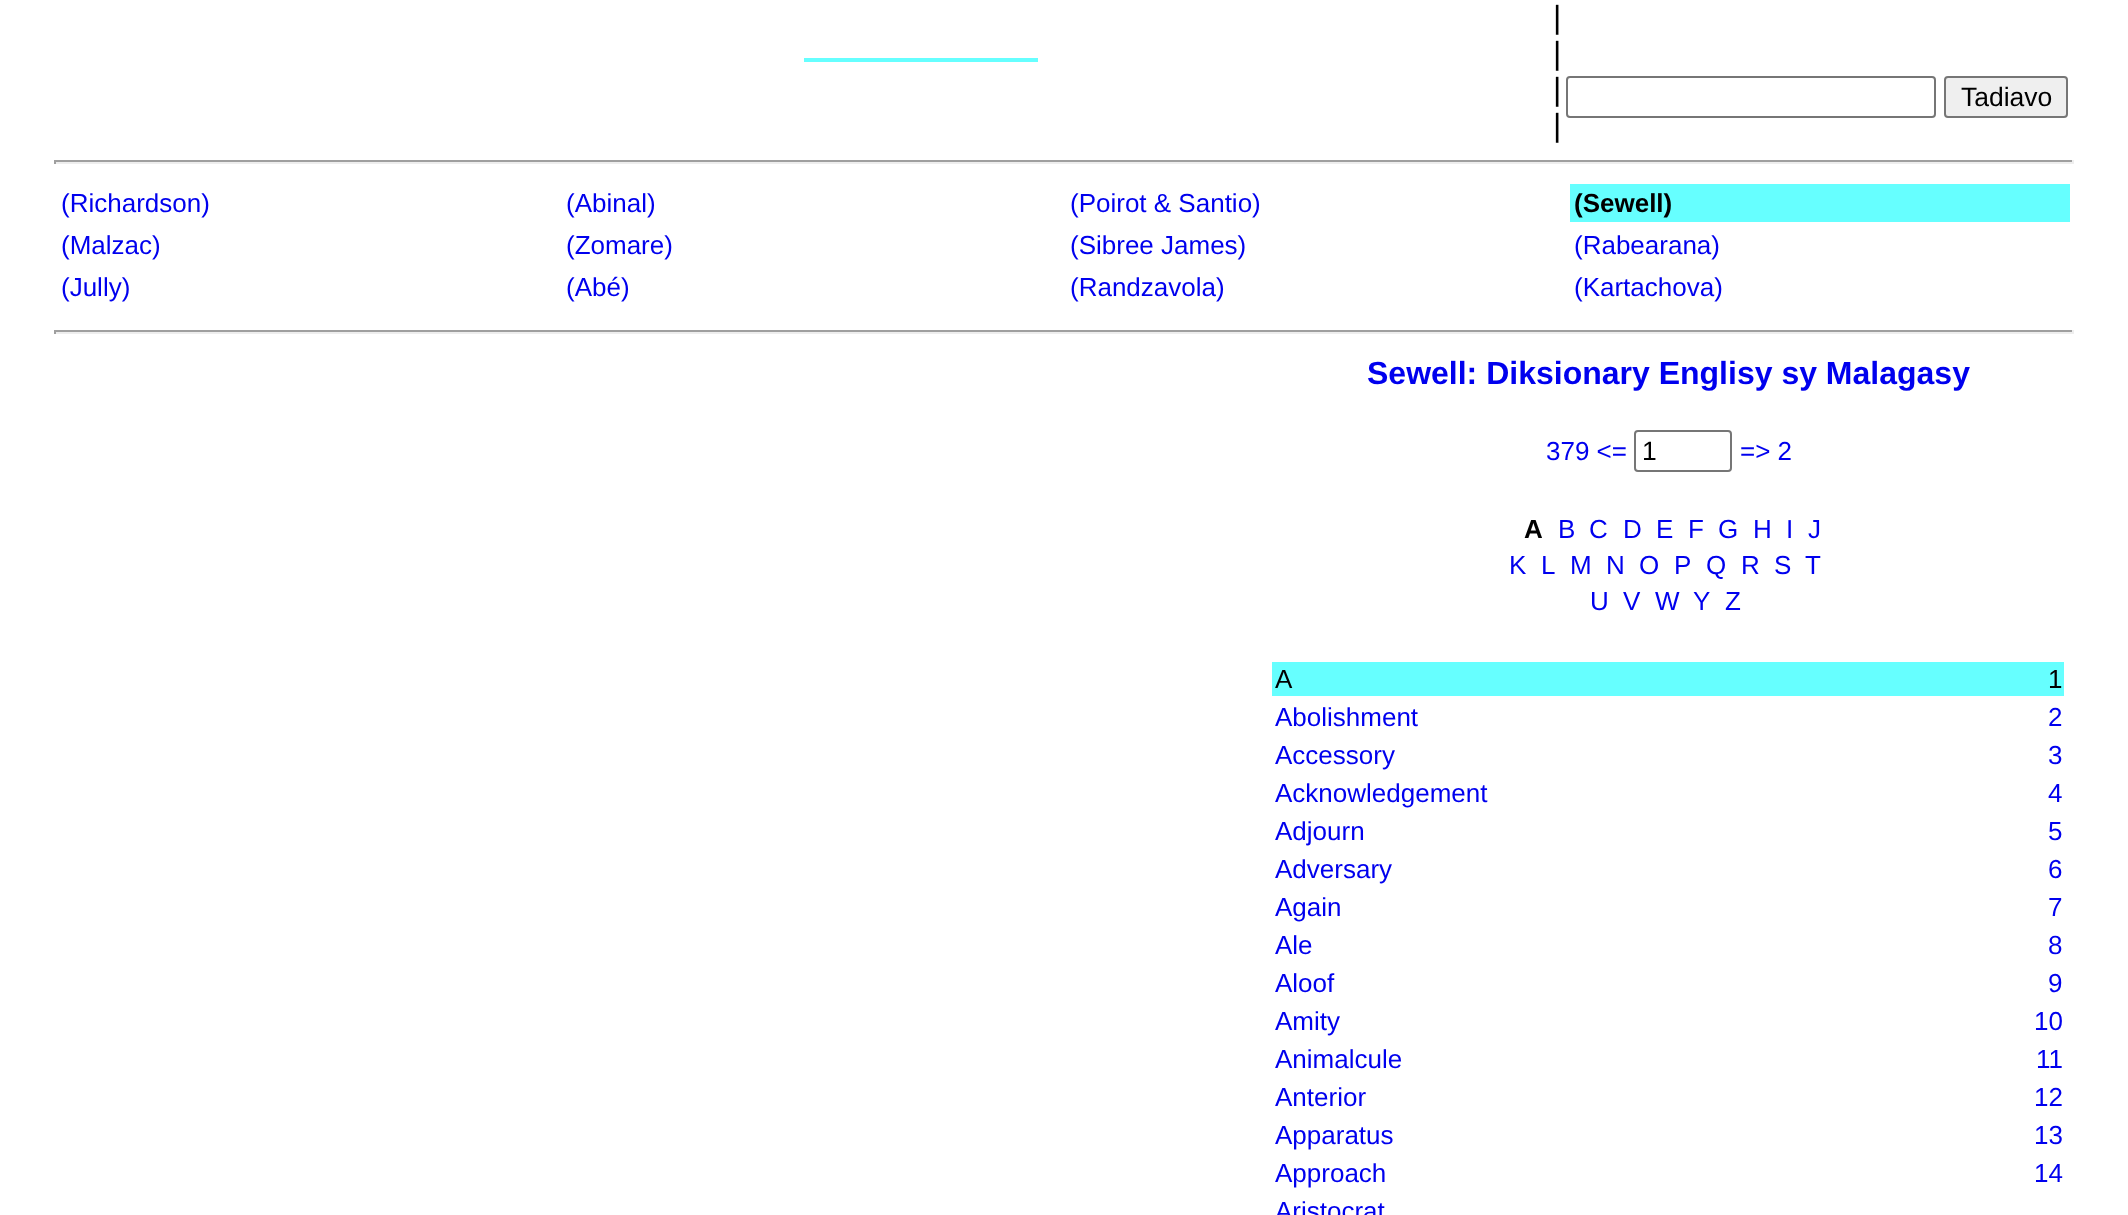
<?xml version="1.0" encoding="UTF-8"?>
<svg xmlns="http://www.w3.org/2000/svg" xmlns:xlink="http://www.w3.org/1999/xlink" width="2128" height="1215">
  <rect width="100%" height="100%" fill="#ffffff" />
  <rect x="804" y="58" width="234" height="4" fill="#66ffff" />
  <rect x="1567" y="77" width="368" height="40" rx="3" fill="none" stroke="#767676" stroke-width="2" />
  <rect x="1945" y="77" width="122" height="40" rx="3" fill="#efefef" stroke="#767676" stroke-width="2" />
  <rect x="54" y="160" width="2020" height="2" fill="#9f9f9f" />
  <rect x="2072" y="160" width="2" height="4" fill="#eeeeee" />
  <rect x="54" y="162" width="2020" height="2" fill="#eeeeee" />
  <rect x="54" y="160" width="2" height="4" fill="#9f9f9f" />
  <rect x="1570" y="184" width="500" height="38" fill="#66ffff" />
  <rect x="54" y="330" width="2020" height="2" fill="#9f9f9f" />
  <rect x="2072" y="330" width="2" height="4" fill="#eeeeee" />
  <rect x="54" y="332" width="2020" height="2" fill="#eeeeee" />
  <rect x="54" y="330" width="2" height="4" fill="#9f9f9f" />
  <rect x="1635" y="431" width="96" height="40" rx="3" fill="none" stroke="#767676" stroke-width="2" />
  <rect x="1272" y="662" width="792" height="34" fill="#66ffff" />
  <text x="1553" y="28" style="font-family: Liberation Sans; font-size: 32px; fill: #000000">|</text>
  <text x="1553" y="64" style="font-family: Liberation Sans; font-size: 32px; fill: #000000">|</text>
  <text x="1553" y="100" style="font-family: Liberation Sans; font-size: 32px; fill: #000000">|</text>
  <text x="1553" y="136" style="font-family: Liberation Sans; font-size: 32px; fill: #000000">|</text>
  <text x="1961" y="106" style="font-family: Liberation Sans; font-size: 26.5px; fill: #000000">Tadiavo</text>
  <text x="61" y="212" style="font-family: Liberation Sans; font-size: 26px; fill: #0000ee">(Richardson)</text>
  <text x="566" y="212" style="font-family: Liberation Sans; font-size: 26px; fill: #0000ee">(Abinal)</text>
  <text x="1070" y="212" style="font-family: Liberation Sans; font-size: 26px; fill: #0000ee">(Poirot &amp; Santio)</text>
  <text x="1574" y="212" style="font-family: Liberation Sans; font-size: 26px; font-weight: bold; fill: #000000">(Sewell)</text>
  <text x="61" y="254" style="font-family: Liberation Sans; font-size: 26px; fill: #0000ee">(Malzac)</text>
  <text x="566" y="254" style="font-family: Liberation Sans; font-size: 26px; fill: #0000ee">(Zomare)</text>
  <text x="1070" y="254" style="font-family: Liberation Sans; font-size: 26px; fill: #0000ee">(Sibree James)</text>
  <text x="1574" y="254" style="font-family: Liberation Sans; font-size: 26px; fill: #0000ee">(Rabearana)</text>
  <text x="61" y="296" style="font-family: Liberation Sans; font-size: 26px; fill: #0000ee">(Jully)</text>
  <text x="566" y="296" style="font-family: Liberation Sans; font-size: 26px; fill: #0000ee">(Abé)</text>
  <text x="1070" y="296" style="font-family: Liberation Sans; font-size: 26px; fill: #0000ee">(Randzavola)</text>
  <text x="1574" y="296" style="font-family: Liberation Sans; font-size: 26px; fill: #0000ee">(Kartachova)</text>
  <text x="1367" y="384" style="font-family: Liberation Sans; font-size: 32px; font-weight: bold; fill: #0000ee">Sewell: Diksionary Englisy sy Malagasy</text>
  <text x="1546" y="460" style="font-family: Liberation Sans; font-size: 26px; fill: #0000ee">379 &lt;=</text>
  <text x="1642" y="460" style="font-family: Liberation Sans; font-size: 26.5px; fill: #000000">1</text>
  <text x="1740" y="460" style="font-family: Liberation Sans; font-size: 26px; fill: #0000ee">=&gt; 2</text>
  <text x="1524" y="538" style="font-family: Liberation Sans; font-size: 26px; font-weight: bold; fill: #000000">A</text>
  <text x="1558" y="538" style="font-family: Liberation Sans; font-size: 26px; fill: #0000ee">B</text>
  <text x="1589" y="538" style="font-family: Liberation Sans; font-size: 26px; fill: #0000ee">C</text>
  <text x="1623" y="538" style="font-family: Liberation Sans; font-size: 26px; fill: #0000ee">D</text>
  <text x="1656" y="538" style="font-family: Liberation Sans; font-size: 26px; fill: #0000ee">E</text>
  <text x="1688" y="538" style="font-family: Liberation Sans; font-size: 26px; fill: #0000ee">F</text>
  <text x="1718" y="538" style="font-family: Liberation Sans; font-size: 26px; fill: #0000ee">G</text>
  <text x="1753" y="538" style="font-family: Liberation Sans; font-size: 26px; fill: #0000ee">H</text>
  <text x="1786" y="538" style="font-family: Liberation Sans; font-size: 26px; fill: #0000ee">I</text>
  <text x="1808" y="538" style="font-family: Liberation Sans; font-size: 26px; fill: #0000ee">J</text>
  <text x="1509" y="574" style="font-family: Liberation Sans; font-size: 26px; fill: #0000ee">K</text>
  <text x="1541" y="574" style="font-family: Liberation Sans; font-size: 26px; fill: #0000ee">L</text>
  <text x="1570" y="574" style="font-family: Liberation Sans; font-size: 26px; fill: #0000ee">M</text>
  <text x="1606" y="574" style="font-family: Liberation Sans; font-size: 26px; fill: #0000ee">N</text>
  <text x="1639" y="574" style="font-family: Liberation Sans; font-size: 26px; fill: #0000ee">O</text>
  <text x="1674" y="574" style="font-family: Liberation Sans; font-size: 26px; fill: #0000ee">P</text>
  <text x="1706" y="574" style="font-family: Liberation Sans; font-size: 26px; fill: #0000ee">Q</text>
  <text x="1741" y="574" style="font-family: Liberation Sans; font-size: 26px; fill: #0000ee">R</text>
  <text x="1774" y="574" style="font-family: Liberation Sans; font-size: 26px; fill: #0000ee">S</text>
  <text x="1805" y="574" style="font-family: Liberation Sans; font-size: 26px; fill: #0000ee">T</text>
  <text x="1590" y="610" style="font-family: Liberation Sans; font-size: 26px; fill: #0000ee">U</text>
  <text x="1623" y="610" style="font-family: Liberation Sans; font-size: 26px; fill: #0000ee">V</text>
  <text x="1655" y="610" style="font-family: Liberation Sans; font-size: 26px; fill: #0000ee">W</text>
  <text x="1693" y="610" style="font-family: Liberation Sans; font-size: 26px; fill: #0000ee">Y</text>
  <text x="1725" y="610" style="font-family: Liberation Sans; font-size: 26px; fill: #0000ee">Z</text>
  <text x="1275" y="688" style="font-family: Liberation Sans; font-size: 26px; fill: #000000">A</text>
  <text x="2048" y="688" style="font-family: Liberation Sans; font-size: 26px; fill: #000000">1</text>
  <text x="1275" y="726" style="font-family: Liberation Sans; font-size: 26px; fill: #0000ee">Abolishment</text>
  <text x="2048" y="726" style="font-family: Liberation Sans; font-size: 26px; fill: #0000ee">2</text>
  <text x="1275" y="764" style="font-family: Liberation Sans; font-size: 26px; fill: #0000ee">Accessory</text>
  <text x="2048" y="764" style="font-family: Liberation Sans; font-size: 26px; fill: #0000ee">3</text>
  <text x="1275" y="802" style="font-family: Liberation Sans; font-size: 26px; fill: #0000ee">Acknowledgement</text>
  <text x="2048" y="802" style="font-family: Liberation Sans; font-size: 26px; fill: #0000ee">4</text>
  <text x="1275" y="840" style="font-family: Liberation Sans; font-size: 26px; fill: #0000ee">Adjourn</text>
  <text x="2048" y="840" style="font-family: Liberation Sans; font-size: 26px; fill: #0000ee">5</text>
  <text x="1275" y="878" style="font-family: Liberation Sans; font-size: 26px; fill: #0000ee">Adversary</text>
  <text x="2048" y="878" style="font-family: Liberation Sans; font-size: 26px; fill: #0000ee">6</text>
  <text x="1275" y="916" style="font-family: Liberation Sans; font-size: 26px; fill: #0000ee">Again</text>
  <text x="2048" y="916" style="font-family: Liberation Sans; font-size: 26px; fill: #0000ee">7</text>
  <text x="1275" y="954" style="font-family: Liberation Sans; font-size: 26px; fill: #0000ee">Ale</text>
  <text x="2048" y="954" style="font-family: Liberation Sans; font-size: 26px; fill: #0000ee">8</text>
  <text x="1275" y="992" style="font-family: Liberation Sans; font-size: 26px; fill: #0000ee">Aloof</text>
  <text x="2048" y="992" style="font-family: Liberation Sans; font-size: 26px; fill: #0000ee">9</text>
  <text x="1275" y="1030" style="font-family: Liberation Sans; font-size: 26px; fill: #0000ee">Amity</text>
  <text x="2034" y="1030" style="font-family: Liberation Sans; font-size: 26px; fill: #0000ee">10</text>
  <text x="1275" y="1068" style="font-family: Liberation Sans; font-size: 26px; fill: #0000ee">Animalcule</text>
  <text x="2036" y="1068" style="font-family: Liberation Sans; font-size: 26px; fill: #0000ee">11</text>
  <text x="1275" y="1106" style="font-family: Liberation Sans; font-size: 26px; fill: #0000ee">Anterior</text>
  <text x="2034" y="1106" style="font-family: Liberation Sans; font-size: 26px; fill: #0000ee">12</text>
  <text x="1275" y="1144" style="font-family: Liberation Sans; font-size: 26px; fill: #0000ee">Apparatus</text>
  <text x="2034" y="1144" style="font-family: Liberation Sans; font-size: 26px; fill: #0000ee">13</text>
  <text x="1275" y="1182" style="font-family: Liberation Sans; font-size: 26px; fill: #0000ee">Approach</text>
  <text x="2034" y="1182" style="font-family: Liberation Sans; font-size: 26px; fill: #0000ee">14</text>
  <text x="1275" y="1220" style="font-family: Liberation Sans; font-size: 26px; fill: #0000ee">Aristocrat</text>
</svg>
